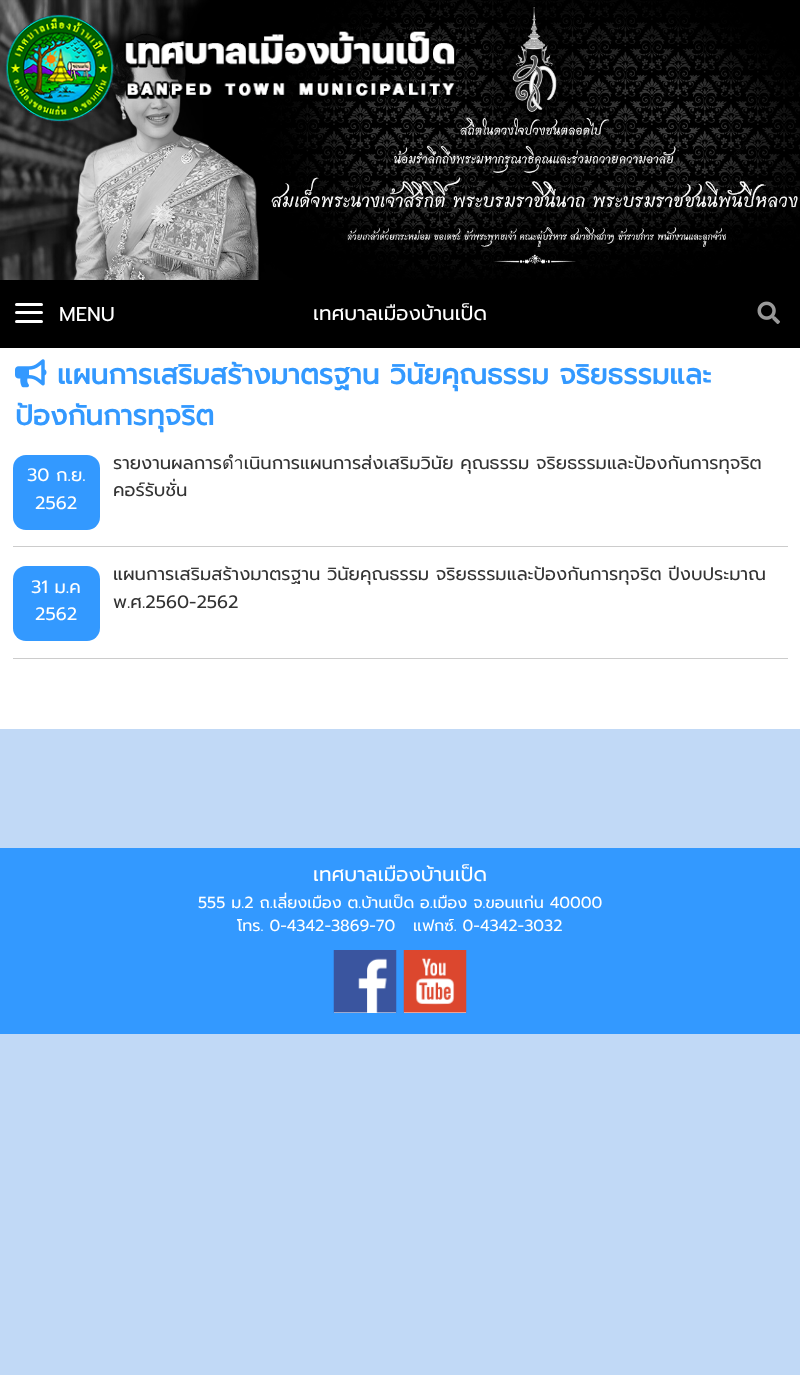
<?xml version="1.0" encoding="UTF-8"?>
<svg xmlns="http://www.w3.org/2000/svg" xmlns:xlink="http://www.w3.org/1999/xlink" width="800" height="1375">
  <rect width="100%" height="100%" fill="#c1d9f6" />
  <image x="0" y="0" width="800" height="280" xlink:href="image1.png" />
  <image x="5" y="14" width="451" height="108" xlink:href="image2.png" />
  <rect y="280" width="800" height="68" fill="#000000" />
  <rect x="15" y="303" width="28" height="3" rx="1.5" fill="#ffffff" />
  <rect x="15" y="311" width="28" height="3" rx="1.5" fill="#ffffff" />
  <rect x="15" y="320" width="28" height="3" rx="1.5" fill="#ffffff" />
  <image x="757" y="301" width="23" height="23" xlink:href="image3.png" />
  <rect y="348" width="800" height="381" fill="#ffffff" />
  <image x="15" y="359" width="32" height="29" xlink:href="image4.png" />
  <rect x="13" y="546" width="775" height="1" fill="#cccccc" />
  <rect x="13" y="455" width="87" height="75" rx="13" fill="#3399ff" />
  <rect x="13" y="658" width="775" height="1" fill="#cccccc" />
  <rect x="13" y="566" width="87" height="75" rx="13" fill="#3399ff" />
  <rect y="848" width="800" height="186" fill="#3399ff" />
  <rect x="334" y="958" width="62" height="55" fill="#ffffff" />
  <image x="333" y="950" width="64" height="63" xlink:href="image5.png" />
  <rect x="404" y="1012" width="62" height="1" fill="#ffffff" />
  <image x="403" y="950" width="64" height="63" xlink:href="image6.png" />
  <text x="59" y="321" style="font-family: Prompt; font-size: 20px; fill: #ffffff">MENU</text>
  <text x="313" y="320" style="font-family: Prompt; font-size: 20px; fill: #ffffff">เทศบาลเมืองบ้านเป็ด</text>
  <text x="57" y="384" style="font-family: Prompt; font-size: 28px; font-weight: bold; fill: #3399ff">แผนการเสริมสร้างมาตรฐาน วินัยคุณธรรม จริยธรรมและ</text>
  <text x="15" y="425" style="font-family: Prompt; font-size: 28px; font-weight: bold; fill: #3399ff">ป้องกันการทุจริต</text>
  <text x="27" y="481" style="font-family: Prompt; font-size: 18px; fill: #ffffff">30 ก.ย.</text>
  <text x="35" y="509" style="font-family: Prompt; font-size: 18px; fill: #ffffff">2562</text>
  <text x="113" y="469" style="font-family: Prompt; font-size: 18px; fill: #333333">รายงานผลการดำเนินการแผนการส่งเสริมวินัย คุณธรรม จริยธรรมและป้องกันการทุจริต</text>
  <text x="113" y="496" style="font-family: Prompt; font-size: 18px; fill: #333333">คอร์รับชั่น</text>
  <text x="31" y="593" style="font-family: Prompt; font-size: 18px; fill: #ffffff">31 ม.ค</text>
  <text x="35" y="620" style="font-family: Prompt; font-size: 18px; fill: #ffffff">2562</text>
  <text x="113" y="580" style="font-family: Prompt; font-size: 18px; fill: #333333">แผนการเสริมสร้างมาตรฐาน วินัยคุณธรรม จริยธรรมและป้องกันการทุจริต ปีงบประมาณ</text>
  <text x="113" y="608" style="font-family: Prompt; font-size: 18px; fill: #333333">พ.ศ.2560-2562</text>
  <text x="313" y="881" style="font-family: Prompt; font-size: 20px; fill: #ffffff">เทศบาลเมืองบ้านเป็ด</text>
  <text x="198" y="908" style="font-family: Prompt; font-size: 16px; fill: #ffffff">555 ม.2 ถ.เลี่ยงเมือง ต.บ้านเป็ด อ.เมือง จ.ขอนแก่น 40000</text>
  <text x="237" y="931" style="font-family: Prompt; font-size: 16px; fill: #ffffff" xml:space="preserve">โทร. 0-4342-3869-70   แฟกซ์. 0-4342-3032</text>
</svg>
